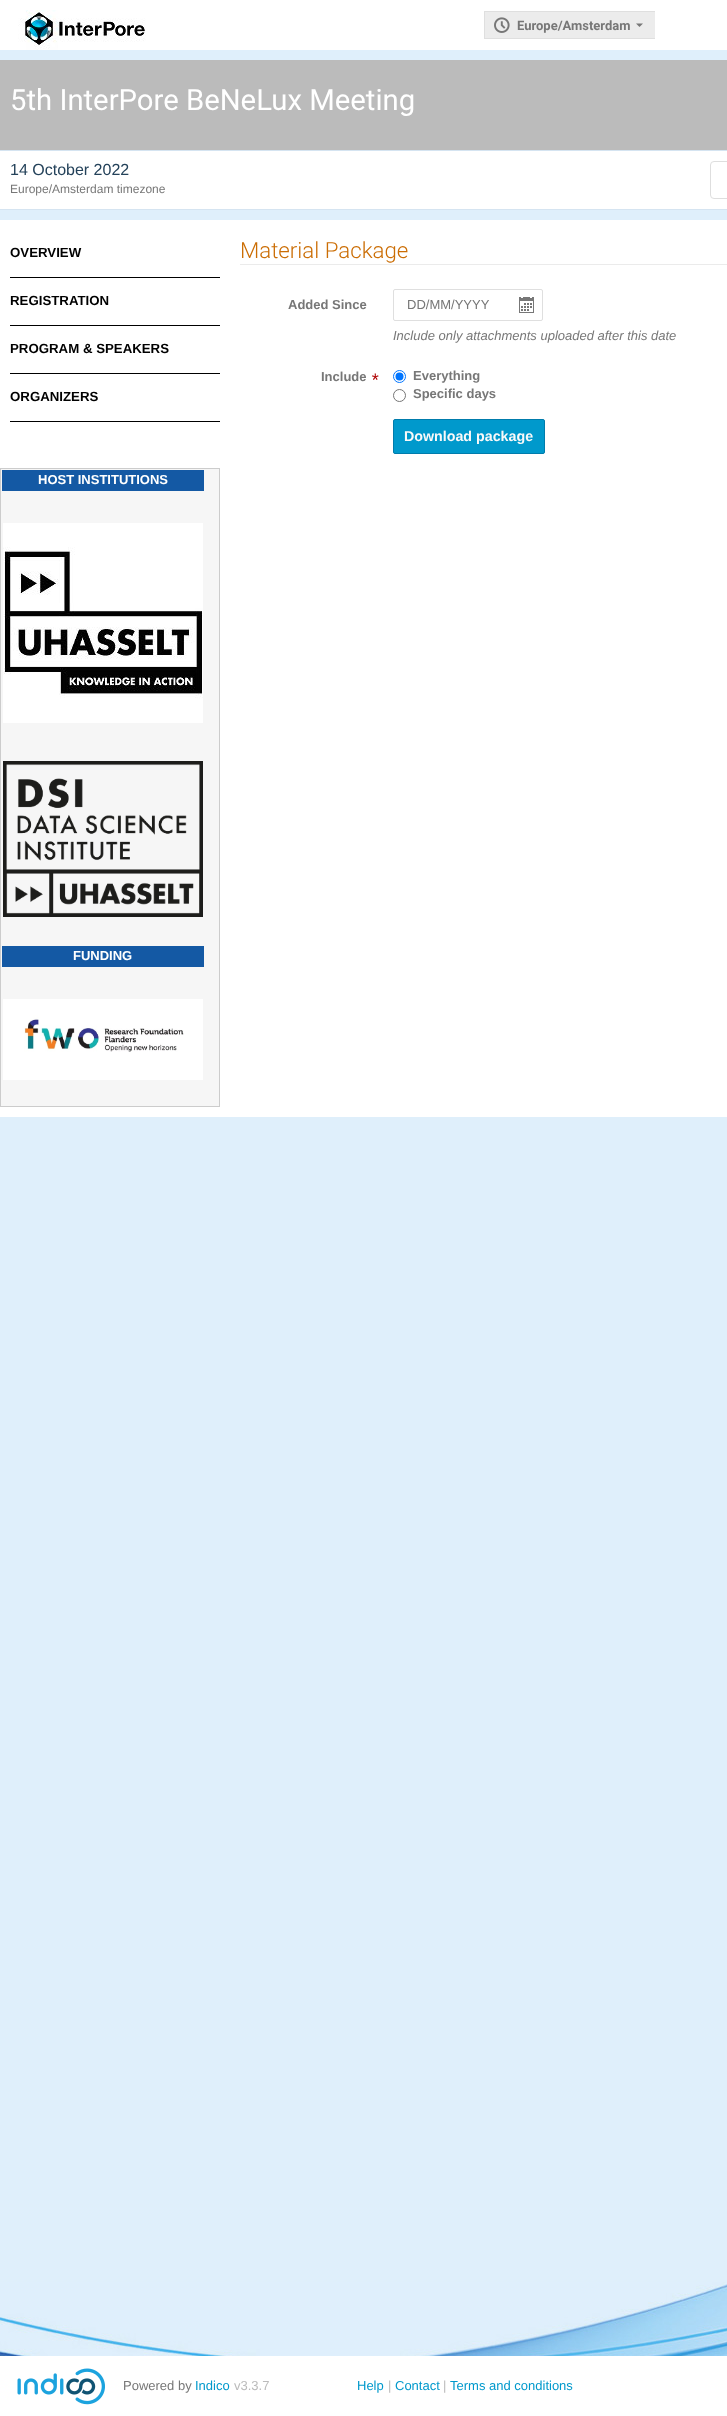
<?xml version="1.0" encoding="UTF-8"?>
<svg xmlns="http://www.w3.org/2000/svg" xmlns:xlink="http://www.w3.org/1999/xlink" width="727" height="2416">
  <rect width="100%" height="100%" fill="#dfeffb" />
  <image x="0" y="2282" width="727" height="74" xlink:href="image1.png" />
  <rect width="727" height="50" fill="#ffffff" />
  <image x="18" y="10" width="128" height="40" xlink:href="image2.png" />
  <rect x="485" y="12" width="170" height="26" fill="#ececec" />
  <rect x="484" y="11" width="171" height="1" fill="#dfdfdf" />
  <rect x="484" y="38" width="171" height="1" fill="#dfdfdf" />
  <rect x="484" y="11" width="1" height="28" fill="#dfdfdf" />
  <image x="494" y="17" width="16" height="16" xlink:href="image3.png" />
  <path d="M 636 23.5 l 3.5 3.5 l 3.5 -3.5 z" fill="#777777" />
  <rect y="60" width="727" height="90" fill="#bbbbbb" />
  <rect y="151" width="727" height="58" fill="#ffffff" />
  <rect y="150" width="727" height="1" fill="#d5e4f1" />
  <rect y="209" width="727" height="1" fill="#d5e4f1" />
  <rect x="710.5" y="161.5" width="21" height="37" rx="3.5" fill="none" stroke="#dedede" />
  <rect y="220" width="727" height="897" fill="#ffffff" />
  <rect x="10" y="277" width="210" height="1" fill="#000000" />
  <rect x="10" y="325" width="210" height="1" fill="#000000" />
  <rect x="10" y="373" width="210" height="1" fill="#000000" />
  <rect x="10" y="421" width="210" height="1" fill="#000000" />
  <rect x="0.5" y="468.5" width="219" height="638" fill="#f6f6f6" stroke="#cccccc" />
  <rect x="2" y="470" width="202" height="21" fill="#1459a4" />
  <image x="3" y="523" width="200" height="200" xlink:href="image4.png" />
  <image x="3" y="761" width="200" height="156" xlink:href="image5.png" />
  <rect x="2" y="946" width="202" height="21" fill="#1459a4" />
  <image x="3" y="999" width="200" height="81" xlink:href="image6.png" />
  <rect x="240" y="264" width="487" height="1" fill="#ebebeb" />
  <rect x="393.5" y="289.5" width="149" height="31" rx="1.5" fill="none" stroke="#dfdfdf" />
  <image x="519" y="297" width="15" height="16" xlink:href="image7.png" />
  <circle cx="399.5" cy="376.5" r="6" fill="none" stroke="#0075ff" />
  <circle cx="399.5" cy="376.5" r="4" fill="#0075ff" />
  <circle cx="399.5" cy="395.5" r="6" fill="none" stroke="#767676" />
  <rect x="393.5" y="419.5" width="151" height="34" rx="1.5" fill="#0099cc" stroke="#007cac" />
  <rect y="2356" width="727" height="60" fill="#ffffff" />
  <image x="17" y="2368" width="88" height="37" xlink:href="image8.png" />
  <text x="517" y="30" style="font-family: Roboto; font-size: 13px; font-weight: bold; fill: #777777">Europe/Amsterdam</text>
  <text x="10" y="110" style="font-family: Roboto; font-size: 29.3px; fill: #ffffff">5th InterPore BeNeLux Meeting</text>
  <text x="10" y="175" style="font-family: Liberation Sans; font-size: 16px; fill: #24425a">14 October 2022</text>
  <text x="10" y="193" style="font-family: Liberation Sans; font-size: 12px; fill: #777777">Europe/Amsterdam timezone</text>
  <text x="10" y="257" style="font-family: 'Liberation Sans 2'; font-size: 13.25px; font-weight: bold; fill: #000000">OVERVIEW</text>
  <text x="10" y="305" style="font-family: 'Liberation Sans 2'; font-size: 13.25px; font-weight: bold; fill: #000000">REGISTRATION</text>
  <text x="10" y="353" style="font-family: 'Liberation Sans 2'; font-size: 13.25px; font-weight: bold; fill: #000000">PROGRAM &amp; SPEAKERS</text>
  <text x="10" y="401" style="font-family: 'Liberation Sans 2'; font-size: 13.25px; font-weight: bold; fill: #000000">ORGANIZERS</text>
  <text x="38" y="484" style="font-family: Liberation Sans; font-size: 13px; font-weight: bold; fill: #ffffff">HOST INSTITUTIONS</text>
  <text x="73" y="960" style="font-family: Liberation Sans; font-size: 13px; font-weight: bold; fill: #ffffff">FUNDING</text>
  <text x="240" y="258" style="font-family: Roboto; font-size: 22.25px; font-weight: 300; fill: #cb6d04">Material Package</text>
  <text x="288" y="309" style="font-family: Liberation Sans; font-size: 13px; font-weight: bold; fill: #777777">Added Since</text>
  <text x="407" y="309" style="font-family: Liberation Sans; font-size: 13px; fill: #777777">DD/MM/YYYY</text>
  <text x="393" y="340" style="font-family: Liberation Sans; font-size: 13px; font-style: italic; fill: #777777">Include only attachments uploaded after this date</text>
  <text x="321" y="381" style="font-family: Liberation Sans; font-size: 13px; font-weight: bold; fill: #777777">Include</text>
  <text x="371" y="386" style="font-family: Liberation Sans; font-size: 18px; font-style: italic; fill: #af0000">*</text>
  <text x="413" y="380" style="font-family: Liberation Sans; font-size: 13px; font-weight: bold; fill: #777777">Everything</text>
  <text x="413" y="398" style="font-family: Liberation Sans; font-size: 13px; font-weight: bold; fill: #777777">Specific days</text>
  <text x="404" y="441" style="font-family: Liberation Sans; font-size: 14.25px; font-weight: bold; fill: #f9f9f9">Download package</text>
  <text x="123" y="2390" style="font-family: Liberation Sans; font-size: 13px; fill: #777777">Powered by</text>
  <text x="195" y="2390" style="font-family: Liberation Sans; font-size: 13px; fill: #0099cc">Indico</text>
  <text x="234" y="2390" style="font-family: Liberation Sans; font-size: 13px; fill: #bbbbbb">v3.3.7</text>
  <text x="357" y="2390" style="font-family: Liberation Sans; font-size: 13px; fill: #0099cc">Help</text>
  <text x="388" y="2390" style="font-family: Liberation Sans; font-size: 13px; fill: #bbbbbb">|</text>
  <text x="395" y="2390" style="font-family: Liberation Sans; font-size: 13px; fill: #0099cc">Contact</text>
  <text x="443" y="2390" style="font-family: Liberation Sans; font-size: 13px; fill: #bbbbbb">|</text>
  <text x="450" y="2390" style="font-family: Liberation Sans; font-size: 13px; fill: #0099cc">Terms and conditions</text>
</svg>
